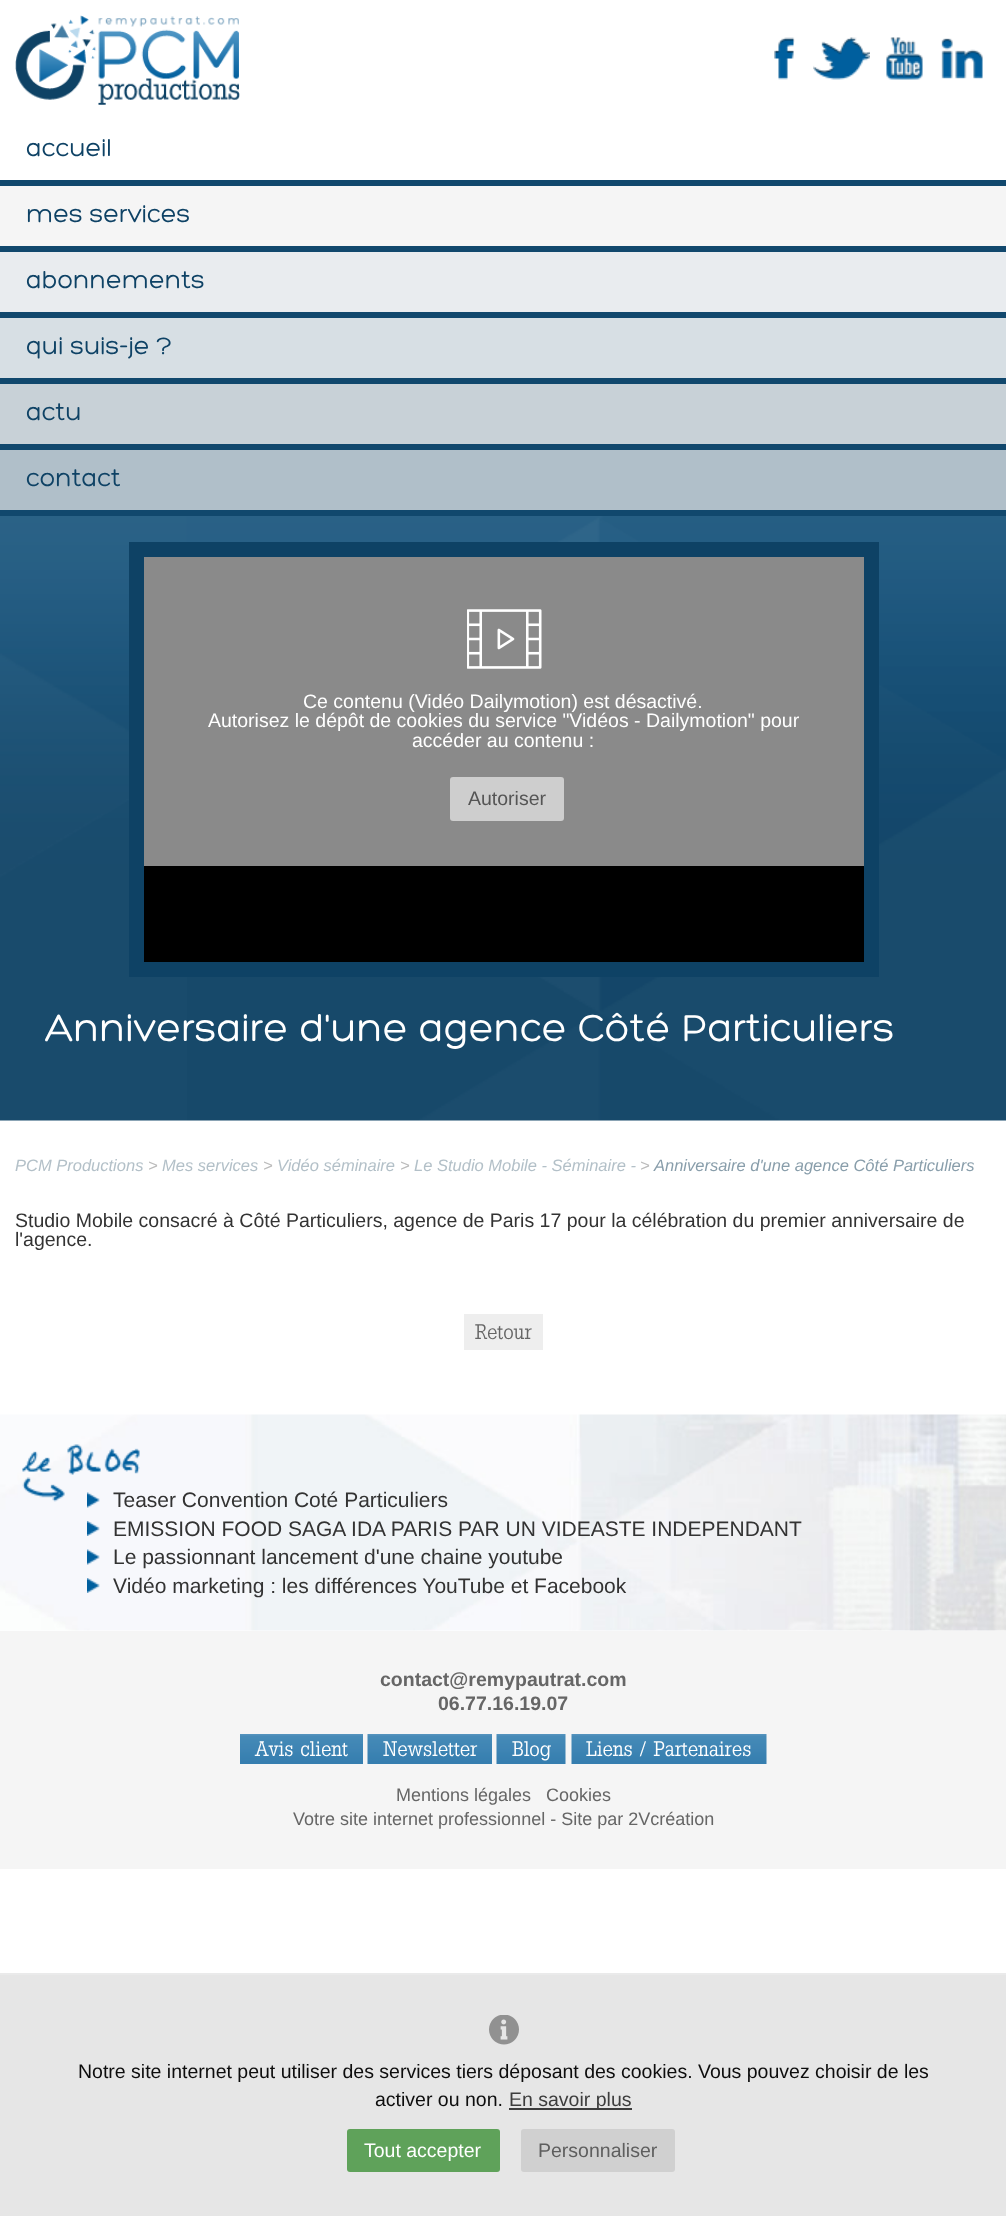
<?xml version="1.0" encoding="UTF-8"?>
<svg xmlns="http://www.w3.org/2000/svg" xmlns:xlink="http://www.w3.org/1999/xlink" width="1006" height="2216">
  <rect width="100%" height="100%" fill="#ffffff" />
  <image x="15" y="15" width="225" height="90" xlink:href="image1.png" />
  <image x="774" y="37" width="21" height="43" xlink:href="image2.png" />
  <image x="813" y="37" width="57" height="43" xlink:href="image3.png" />
  <image x="886" y="37" width="37" height="43" xlink:href="image4.png" />
  <image x="941" y="38" width="42" height="41" xlink:href="image5.png" />
  <rect y="180" width="1006" height="336" fill="#11486d" />
  <rect y="186" width="1006" height="60" fill="#f5f5f5" />
  <rect y="252" width="1006" height="60" fill="#e9ecef" />
  <rect y="318" width="1006" height="60" fill="#d7dfe4" />
  <rect y="384" width="1006" height="60" fill="#c8d1d7" />
  <rect y="450" width="1006" height="60" fill="#b0bfc9" />
  <image x="0" y="516" width="1006" height="605" xlink:href="image6.png" />
  <rect x="144" y="866" width="720" height="96" fill="#000000" />
  <rect x="136.5" y="549.5" width="735" height="420" fill="none" stroke="#0e4265" stroke-width="15" />
  <rect x="144" y="557" width="720" height="309" fill="#8a8a8a" />
  <image x="467" y="609" width="75" height="60" xlink:href="image7.png" />
  <rect x="450" y="777" width="114" height="44" rx="3" fill="#cecece" />
  <rect x="464" y="1314" width="79" height="36" fill="#eeeeee" />
  <image x="0" y="1414" width="1006" height="217" xlink:href="image8.png" />
  <image x="87" y="1492" width="13" height="16" xlink:href="image10.png" />
  <image x="22" y="1444" width="118" height="58" xlink:href="image9.png" />
  <image x="87" y="1521" width="13" height="15" xlink:href="image11.png" />
  <image x="87" y="1549" width="13" height="16" xlink:href="image10.png" />
  <image x="87" y="1578" width="13" height="15" xlink:href="image11.png" />
  <rect y="1631" width="1006" height="238" fill="#f5f5f5" />
  <image x="240" y="1734" width="123" height="30" xlink:href="image12.png" />
  <image x="367" y="1734" width="125" height="30" xlink:href="image13.png" />
  <image x="496" y="1734" width="70" height="30" xlink:href="image14.png" />
  <image x="571" y="1734" width="196" height="30" xlink:href="image15.png" />
  <rect y="1975" width="1006" height="241" fill="#e6e6e6" />
  <rect y="1973" width="1006" height="2" fill="#eaeaea" />
  <image x="489" y="2015" width="30" height="30" xlink:href="image16.png" />
  <rect x="509" y="2108" width="123" height="2" fill="#3d3d3d" />
  <rect x="347" y="2129" width="153" height="43" rx="3" fill="#5fa25a" />
  <rect x="521" y="2129" width="154" height="43" rx="3" fill="#d0d0d0" />
  <text x="26" y="156" style="font-family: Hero; font-size: 25.5px; fill: #0e4265">accueil</text>
  <text x="26" y="222" style="font-family: Hero; font-size: 25.5px; fill: #0e4265">mes services</text>
  <text x="26" y="288" style="font-family: Hero; font-size: 25.5px; fill: #0e4265">abonnements</text>
  <text x="26" y="354" style="font-family: Hero; font-size: 25.5px; fill: #0e4265">qui suis-je ?</text>
  <text x="26" y="420" style="font-family: Hero; font-size: 25.5px; fill: #0e4265">actu</text>
  <text x="26" y="486" style="font-family: Hero; font-size: 25.5px; fill: #0e4265">contact</text>
  <text x="303" y="708" style="font-family: Liberation Sans; font-size: 19.5px; fill: #ffffff">Ce contenu (Vidéo Dailymotion) est désactivé.</text>
  <text x="208" y="727" style="font-family: Liberation Sans; font-size: 19.5px; fill: #ffffff">Autorisez le dépôt de cookies du service "Vidéos - Dailymotion" pour</text>
  <text x="412" y="747" style="font-family: Liberation Sans; font-size: 19.5px; fill: #ffffff">accéder au contenu :</text>
  <text x="468" y="805" style="font-family: Liberation Sans; font-size: 19.5px; fill: #555555">Autoriser</text>
  <text x="45" y="1041" style="font-family: Hero; font-size: 40.5px; fill: #ffffff">Anniversaire d'une agence Côté Particuliers</text>
  <text x="15" y="1171" style="font-family: Liberation Sans; font-size: 16.5px; font-style: italic; fill: #b3c0c8">PCM Productions</text>
  <text x="148" y="1171" style="font-family: Liberation Sans; font-size: 16.5px; font-style: italic; fill: #bbbbbb">&gt;</text>
  <text x="162" y="1171" style="font-family: Liberation Sans; font-size: 16.5px; font-style: italic; fill: #b3c0c8">Mes services</text>
  <text x="263" y="1171" style="font-family: Liberation Sans; font-size: 16.5px; font-style: italic; fill: #bbbbbb">&gt;</text>
  <text x="277" y="1171" style="font-family: Liberation Sans; font-size: 16.5px; font-style: italic; fill: #b3c0c8">Vidéo séminaire</text>
  <text x="400" y="1171" style="font-family: Liberation Sans; font-size: 16.5px; font-style: italic; fill: #bbbbbb">&gt;</text>
  <text x="414" y="1171" style="font-family: Liberation Sans; font-size: 16.5px; font-style: italic; fill: #b3c0c8">Le Studio Mobile - Séminaire -</text>
  <text x="640" y="1171" style="font-family: Liberation Sans; font-size: 16.5px; font-style: italic; fill: #bbbbbb">&gt;</text>
  <text x="654" y="1171" style="font-family: Liberation Sans; font-size: 16.5px; font-style: italic; fill: #899eab">Anniversaire d'une agence Côté Particuliers</text>
  <text x="15" y="1227" style="font-family: Liberation Sans; font-size: 19.5px; fill: #333333">Studio Mobile consacré à Côté Particuliers, agence de Paris 17 pour la célébration du premier anniversaire de</text>
  <text x="15" y="1246" style="font-family: Liberation Sans; font-size: 19.5px; fill: #333333">l'agence.</text>
  <text x="475" y="1339" style="font-family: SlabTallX; font-size: 21px; font-weight: 500; fill: #666666">Retour</text>
  <text x="113" y="1507" style="font-family: Liberation Sans; font-size: 21px; fill: #333333">Teaser Convention Coté Particuliers</text>
  <text x="113" y="1536" style="font-family: Liberation Sans; font-size: 21px; fill: #333333">EMISSION FOOD SAGA IDA PARIS PAR UN VIDEASTE INDEPENDANT</text>
  <text x="113" y="1564" style="font-family: Liberation Sans; font-size: 21px; fill: #333333">Le passionnant lancement d'une chaine youtube</text>
  <text x="113" y="1593" style="font-family: Liberation Sans; font-size: 21px; fill: #333333">Vidéo marketing : les différences YouTube et Facebook</text>
  <text x="380" y="1686" style="font-family: Liberation Sans; font-size: 19.5px; font-weight: bold; fill: #666666">contact@remypautrat.com</text>
  <text x="438" y="1710" style="font-family: Liberation Sans; font-size: 19.5px; font-weight: bold; fill: #666666">06.77.16.19.07</text>
  <text x="255" y="1756" style="font-family: SlabTallX; font-size: 21px; font-weight: 500; fill: #ffffff">Avis client</text>
  <text x="383" y="1756" style="font-family: SlabTallX; font-size: 21px; font-weight: 500; fill: #ffffff">Newsletter</text>
  <text x="512" y="1756" style="font-family: SlabTallX; font-size: 21px; font-weight: 500; fill: #ffffff">Blog</text>
  <text x="586" y="1756" style="font-family: SlabTallX; font-size: 21px; font-weight: 500; fill: #ffffff">Liens / Partenaires</text>
  <text x="396" y="1801" style="font-family: Liberation Sans; font-size: 18px; fill: #666666">Mentions légales</text>
  <text x="546" y="1801" style="font-family: Liberation Sans; font-size: 18px; fill: #666666">Cookies</text>
  <text x="293" y="1825" style="font-family: Liberation Sans; font-size: 18px; fill: #666666">Votre site internet professionnel - Site par 2Vcréation</text>
  <text x="78" y="2078" style="font-family: Liberation Sans; font-size: 19.5px; fill: #0d0d0d">Notre site internet peut utiliser des services tiers déposant des cookies. Vous pouvez choisir de les</text>
  <text x="375" y="2106" style="font-family: Liberation Sans; font-size: 19.5px; fill: #0d0d0d">activer ou non.</text>
  <text x="509" y="2106" style="font-family: Liberation Sans; font-size: 19.5px; fill: #3d3d3d">En savoir plus</text>
  <text x="364" y="2157" style="font-family: Liberation Sans; font-size: 19.5px; fill: #ffffff">Tout accepter</text>
  <text x="538" y="2157" style="font-family: Liberation Sans; font-size: 19.5px; fill: #5e5e5e">Personnaliser</text>
</svg>
